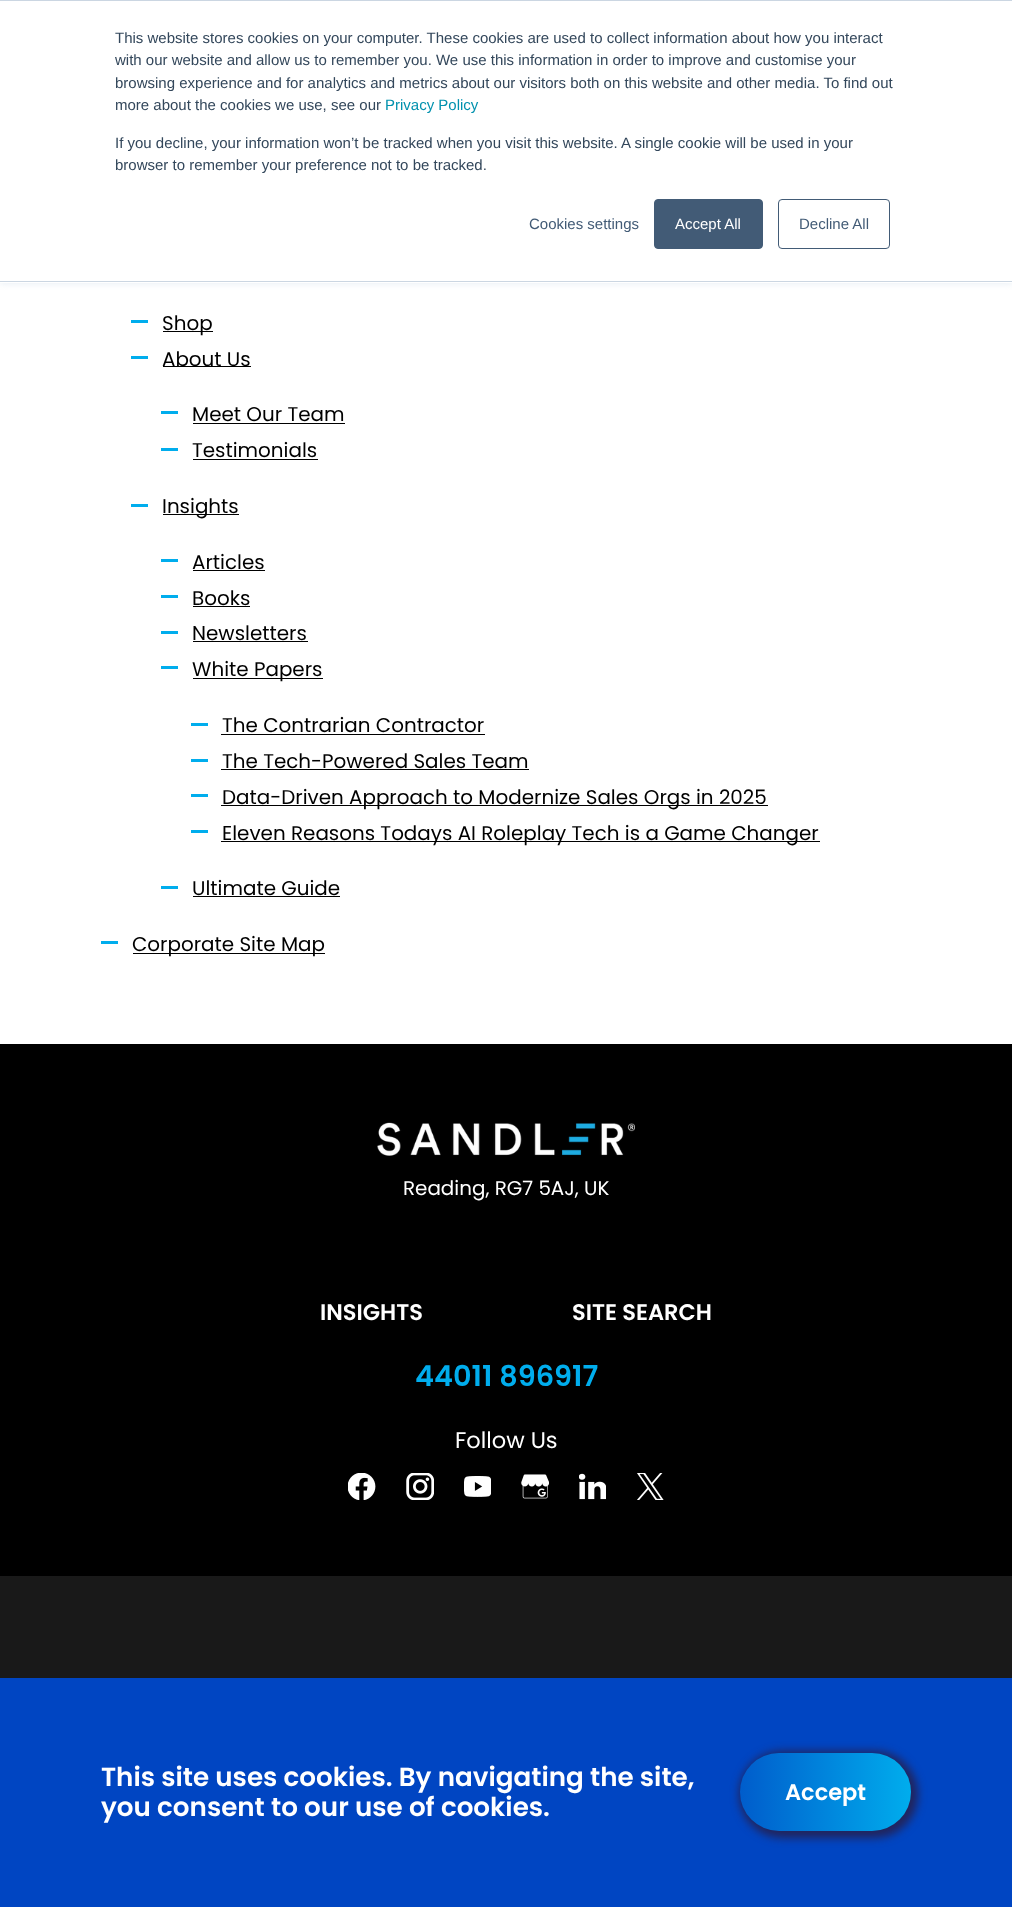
<?xml version="1.0" encoding="UTF-8"?>
<svg xmlns="http://www.w3.org/2000/svg" xmlns:xlink="http://www.w3.org/1999/xlink" width="1012" height="1907">
  <defs>
    <linearGradient id="g1" gradientUnits="userSpaceOnUse" x1="911" y1="1792" x2="690" y2="1792"><stop offset="0" stop-color="#00aded" /><stop offset="1" stop-color="#0045c2" /></linearGradient>
  </defs>
  <rect width="100%" height="100%" fill="#ffffff" />
  <rect y="1" width="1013" height="283" fill="#eaf0f6" filter="blur(3px)" />
  <rect y="1" width="1012" height="282" fill="#ffffff" />
  <rect width="1012" height="1" fill="#cbd6e2" />
  <rect y="281" width="1012" height="1" fill="#cbd6e2" />
  <rect x="654.5" y="199.5" width="108" height="49" rx="3.5" fill="#425b76" stroke="#425b76" />
  <rect x="778.5" y="199.5" width="111" height="49" rx="3.5" fill="none" stroke="#425b76" />
  <rect x="131" y="320" width="17" height="3" fill="#00aded" />
  <rect x="163" y="331" width="50" height="1" fill="#000000" />
  <rect x="131" y="356" width="17" height="3" fill="#00aded" />
  <rect x="163" y="366" width="88" height="1" fill="#000000" />
  <rect x="161" y="411" width="17" height="3" fill="#00aded" />
  <rect x="193" y="423" width="152" height="1" fill="#000000" />
  <rect x="161" y="448" width="17" height="3" fill="#00aded" />
  <rect x="193" y="459" width="125" height="1" fill="#000000" />
  <rect x="131" y="504" width="17" height="3" fill="#00aded" />
  <rect x="163" y="514" width="76" height="1" fill="#000000" />
  <rect x="161" y="559" width="17" height="3" fill="#00aded" />
  <rect x="193" y="570" width="72" height="1" fill="#000000" />
  <rect x="161" y="595" width="17" height="3" fill="#00aded" />
  <rect x="193" y="606" width="57" height="1" fill="#000000" />
  <rect x="161" y="631" width="17" height="3" fill="#00aded" />
  <rect x="193" y="641" width="115" height="1" fill="#000000" />
  <rect x="161" y="666" width="17" height="3" fill="#00aded" />
  <rect x="193" y="678" width="130" height="1" fill="#000000" />
  <rect x="191" y="723" width="17" height="3" fill="#00aded" />
  <rect x="221" y="734" width="264" height="1" fill="#000000" />
  <rect x="191" y="759" width="17" height="3" fill="#00aded" />
  <rect x="221" y="769" width="308" height="1" fill="#000000" />
  <rect x="191" y="794" width="17" height="3" fill="#00aded" />
  <rect x="221" y="805" width="547" height="1" fill="#000000" />
  <rect x="191" y="830" width="17" height="3" fill="#00aded" />
  <rect x="221" y="841" width="599" height="1" fill="#000000" />
  <rect x="161" y="886" width="17" height="3" fill="#00aded" />
  <rect x="193" y="896" width="147" height="1" fill="#000000" />
  <rect x="101" y="941" width="17" height="3" fill="#00aded" />
  <rect x="133" y="953" width="192" height="1" fill="#000000" />
  <rect y="1678" width="1012" height="229" fill="#0045c2" />
  <rect x="739" y="1751" width="179" height="87" rx="43.5" fill="#21245c" filter="blur(4.5px)" />
  <rect x="740" y="1753" width="171" height="78" rx="39" fill="url(#g1)" />
  <rect y="1044" width="1012" height="532" fill="#000000" />
  <image x="377" y="1122" width="258" height="34" xlink:href="image1.png" />
  <image x="348" y="1473" width="28" height="27" xlink:href="image2.png" />
  <image x="406" y="1473" width="28" height="27" xlink:href="image3.png" />
  <image x="464" y="1476" width="27" height="21" xlink:href="image4.png" />
  <image x="521" y="1474" width="28" height="25" xlink:href="image5.png" />
  <image x="579" y="1473" width="27" height="27" xlink:href="image6.png" />
  <image x="637" y="1473" width="27" height="27" xlink:href="image7.png" />
  <rect y="1576" width="1012" height="102" fill="#191919" />
  <text x="115" y="43" style="font-family: Liberation Sans; font-size: 15px; fill: #33475b">This website stores cookies on your computer. These cookies are used to collect information about how you interact</text>
  <text x="115" y="65" style="font-family: Liberation Sans; font-size: 15px; fill: #33475b">with our website and allow us to remember you. We use this information in order to improve and customise your</text>
  <text x="115" y="88" style="font-family: Liberation Sans; font-size: 15px; fill: #33475b">browsing experience and for analytics and metrics about our visitors both on this website and other media. To find out</text>
  <text x="115" y="110" style="font-family: Liberation Sans; font-size: 15px; fill: #33475b">more about the cookies we use, see our</text>
  <text x="385" y="110" style="font-family: Liberation Sans; font-size: 15px; fill: #0091ae">Privacy Policy</text>
  <text x="115" y="148" style="font-family: Liberation Sans; font-size: 15px; fill: #33475b">If you decline, your information won’t be tracked when you visit this website. A single cookie will be used in your</text>
  <text x="115" y="170" style="font-family: Liberation Sans; font-size: 15px; fill: #33475b">browser to remember your preference not to be tracked.</text>
  <text x="529" y="229" style="font-family: Liberation Sans; font-size: 15px; fill: #425b76">Cookies settings</text>
  <text x="675" y="229" style="font-family: Liberation Sans; font-size: 15px; fill: #ffffff">Accept All</text>
  <text x="799" y="229" style="font-family: Liberation Sans; font-size: 15px; fill: #425b76">Decline All</text>
  <text x="162" y="330" style="font-family: Poppins; font-size: 19.9px; fill: #000000">Shop</text>
  <text x="162" y="366" style="font-family: Poppins; font-size: 19.9px; fill: #000000">About Us</text>
  <text x="192" y="421" style="font-family: Poppins; font-size: 19.9px; fill: #000000">Meet Our Team</text>
  <text x="192" y="457" style="font-family: Poppins; font-size: 19.9px; fill: #000000">Testimonials</text>
  <text x="162" y="513" style="font-family: Poppins; font-size: 19.9px; fill: #000000">Insights</text>
  <text x="192" y="569" style="font-family: Poppins; font-size: 19.9px; fill: #000000">Articles</text>
  <text x="192" y="605" style="font-family: Poppins; font-size: 19.9px; fill: #000000">Books</text>
  <text x="192" y="640" style="font-family: Poppins; font-size: 19.9px; fill: #000000">Newsletters</text>
  <text x="192" y="676" style="font-family: Poppins; font-size: 19.9px; fill: #000000">White Papers</text>
  <text x="222" y="732" style="font-family: Poppins; font-size: 19.9px; fill: #000000">The Contrarian Contractor</text>
  <text x="222" y="768" style="font-family: Poppins; font-size: 19.9px; fill: #000000">The Tech-Powered Sales Team</text>
  <text x="222" y="804" style="font-family: Poppins; font-size: 19.9px; fill: #000000">Data-Driven Approach to Modernize Sales Orgs in 2025</text>
  <text x="222" y="840" style="font-family: Poppins; font-size: 19.9px; fill: #000000">Eleven Reasons Todays AI Roleplay Tech is a Game Changer</text>
  <text x="192" y="895" style="font-family: Poppins; font-size: 19.9px; fill: #000000">Ultimate Guide</text>
  <text x="132" y="951" style="font-family: Poppins; font-size: 19.9px; fill: #000000">Corporate Site Map</text>
  <text x="101" y="1786" style="font-family: Poppins; font-size: 26.2px; font-weight: 600; fill: #ffffff">This site uses cookies. By navigating the site,</text>
  <text x="101" y="1816" style="font-family: Poppins; font-size: 26.2px; font-weight: 600; fill: #ffffff">you consent to our use of cookies.</text>
  <text x="785" y="1800" style="font-family: Poppins; font-size: 22.5px; font-weight: 600; fill: #ffffff">Accept</text>
  <text x="403" y="1195" style="font-family: Poppins; font-size: 19.9px; fill: #ffffff">Reading, RG7 5AJ, UK</text>
  <text x="320" y="1320" style="font-family: Poppins; font-size: 22.5px; font-weight: 600; fill: #ffffff">INSIGHTS</text>
  <text x="572" y="1320" style="font-family: Poppins; font-size: 22.5px; font-weight: 600; fill: #ffffff">SITE SEARCH</text>
  <text x="415" y="1386" style="font-family: Poppins; font-size: 28.75px; font-weight: 600; fill: #00aded">44011 896917</text>
  <text x="455" y="1448" style="font-family: Poppins; font-size: 22.5px; fill: #ffffff">Follow Us</text>
</svg>
